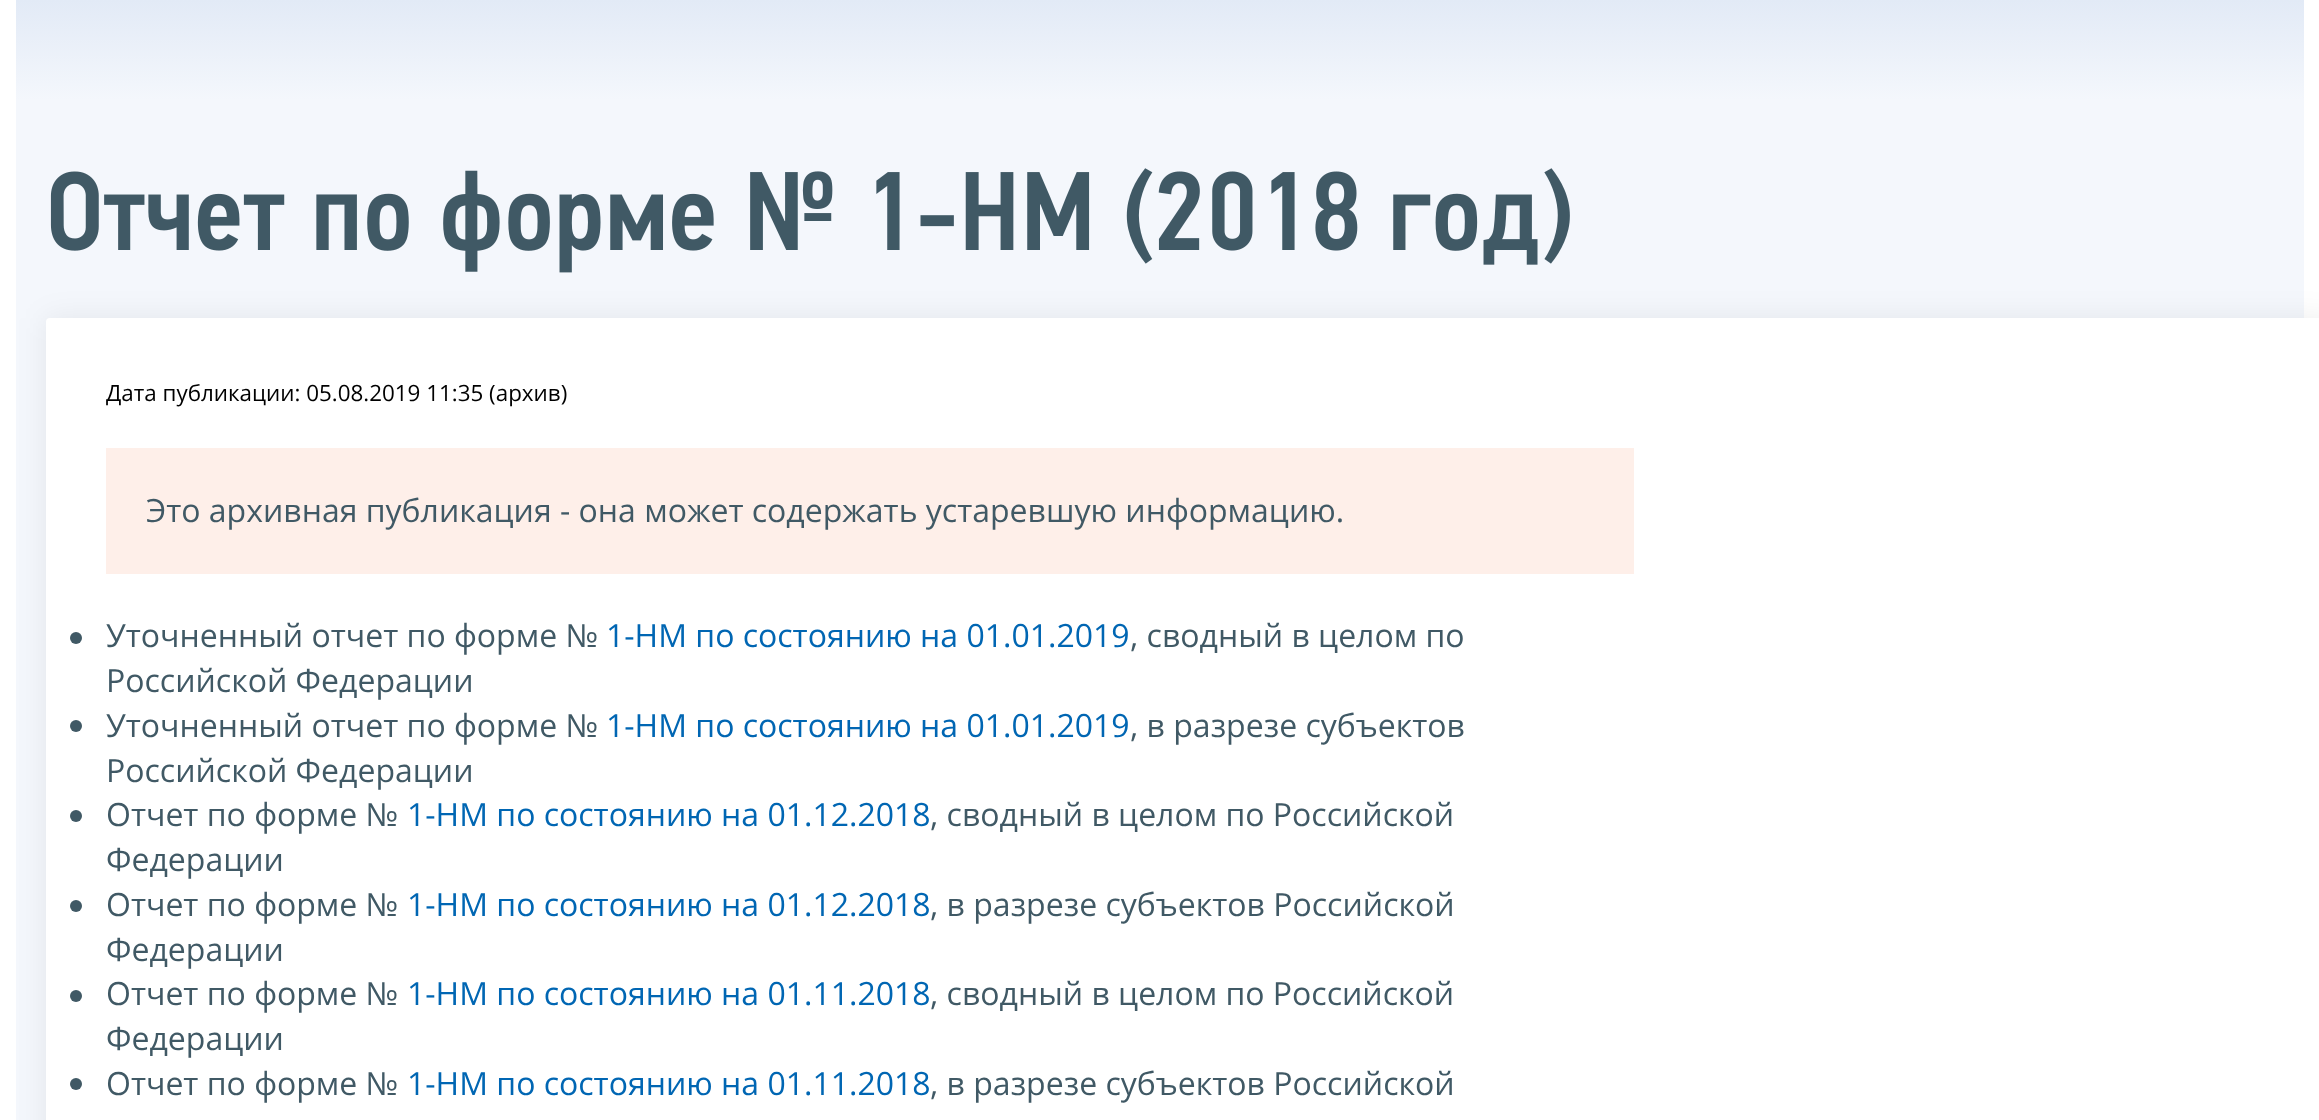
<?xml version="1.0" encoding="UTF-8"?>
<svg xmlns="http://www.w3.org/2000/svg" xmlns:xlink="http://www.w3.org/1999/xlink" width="2319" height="1120">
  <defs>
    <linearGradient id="g1" gradientUnits="userSpaceOnUse" x1="1160" y1="0" x2="1160" y2="100"><stop offset="0" stop-color="#e2eaf6" /><stop offset="1" stop-color="#f4f7fc" /></linearGradient>
  </defs>
  <rect width="100%" height="100%" fill="#ffffff" />
  <rect x="16" y="100" width="2288" height="1020" fill="#f4f7fc" />
  <rect x="16" width="2288" height="100" fill="url(#g1)" />
  <rect x="46" y="318" width="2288" height="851" rx="4" fill="#000000" fill-opacity="0.07" filter="blur(15px)" />
  <image x="50" y="168" width="1520" height="105" xlink:href="image1.png" />
  <rect x="46" y="318" width="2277" height="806" rx="4" fill="#ffffff" />
  <rect x="106" y="448" width="1528" height="126" fill="#feefe9" />
  <circle cx="76" cy="638" r="6" fill="#405965" />
  <circle cx="76" cy="726" r="6" fill="#405965" />
  <circle cx="76" cy="816" r="6" fill="#405965" />
  <circle cx="76" cy="906" r="6" fill="#405965" />
  <circle cx="76" cy="996" r="6" fill="#405965" />
  <circle cx="76" cy="1084" r="6" fill="#405965" />
  <text x="106" y="401" style="font-family: Open Sans; font-size: 22.4px; fill: #000000">Дата публикации: 05.08.2019 11:35 (архив)</text>
  <text x="146" y="522" style="font-family: Open Sans; font-size: 32px; fill: #405965">Это архивная публикация - она может содержать устаревшую информацию.</text>
  <text x="106" y="647" style="font-family: Open Sans; font-size: 32px; fill: #405965">Уточненный отчет по форме №</text>
  <text x="606" y="647" style="font-family: Open Sans; font-size: 32px; fill: #0066b3">1-НМ по состоянию на 01.01.2019</text>
  <text x="1130" y="647" style="font-family: Open Sans; font-size: 32px; fill: #405965">, сводный в целом по</text>
  <text x="106" y="692" style="font-family: Open Sans; font-size: 32px; fill: #405965">Российской Федерации</text>
  <text x="106" y="737" style="font-family: Open Sans; font-size: 32px; fill: #405965">Уточненный отчет по форме №</text>
  <text x="606" y="737" style="font-family: Open Sans; font-size: 32px; fill: #0066b3">1-НМ по состоянию на 01.01.2019</text>
  <text x="1130" y="737" style="font-family: Open Sans; font-size: 32px; fill: #405965">, в разрезе субъектов</text>
  <text x="106" y="782" style="font-family: Open Sans; font-size: 32px; fill: #405965">Российской Федерации</text>
  <text x="106" y="826" style="font-family: Open Sans; font-size: 32px; fill: #405965">Отчет по форме №</text>
  <text x="407" y="826" style="font-family: Open Sans; font-size: 32px; fill: #0066b3">1-НМ по состоянию на 01.12.2018</text>
  <text x="930" y="826" style="font-family: Open Sans; font-size: 32px; fill: #405965">, сводный в целом по Российской</text>
  <text x="106" y="871" style="font-family: Open Sans; font-size: 32px; fill: #405965">Федерации</text>
  <text x="106" y="916" style="font-family: Open Sans; font-size: 32px; fill: #405965">Отчет по форме №</text>
  <text x="407" y="916" style="font-family: Open Sans; font-size: 32px; fill: #0066b3">1-НМ по состоянию на 01.12.2018</text>
  <text x="930" y="916" style="font-family: Open Sans; font-size: 32px; fill: #405965">, в разрезе субъектов Российской</text>
  <text x="106" y="961" style="font-family: Open Sans; font-size: 32px; fill: #405965">Федерации</text>
  <text x="106" y="1005" style="font-family: Open Sans; font-size: 32px; fill: #405965">Отчет по форме №</text>
  <text x="407" y="1005" style="font-family: Open Sans; font-size: 32px; fill: #0066b3">1-НМ по состоянию на 01.11.2018</text>
  <text x="930" y="1005" style="font-family: Open Sans; font-size: 32px; fill: #405965">, сводный в целом по Российской</text>
  <text x="106" y="1050" style="font-family: Open Sans; font-size: 32px; fill: #405965">Федерации</text>
  <text x="106" y="1095" style="font-family: Open Sans; font-size: 32px; fill: #405965">Отчет по форме №</text>
  <text x="407" y="1095" style="font-family: Open Sans; font-size: 32px; fill: #0066b3">1-НМ по состоянию на 01.11.2018</text>
  <text x="930" y="1095" style="font-family: Open Sans; font-size: 32px; fill: #405965">, в разрезе субъектов Российской</text>
</svg>
